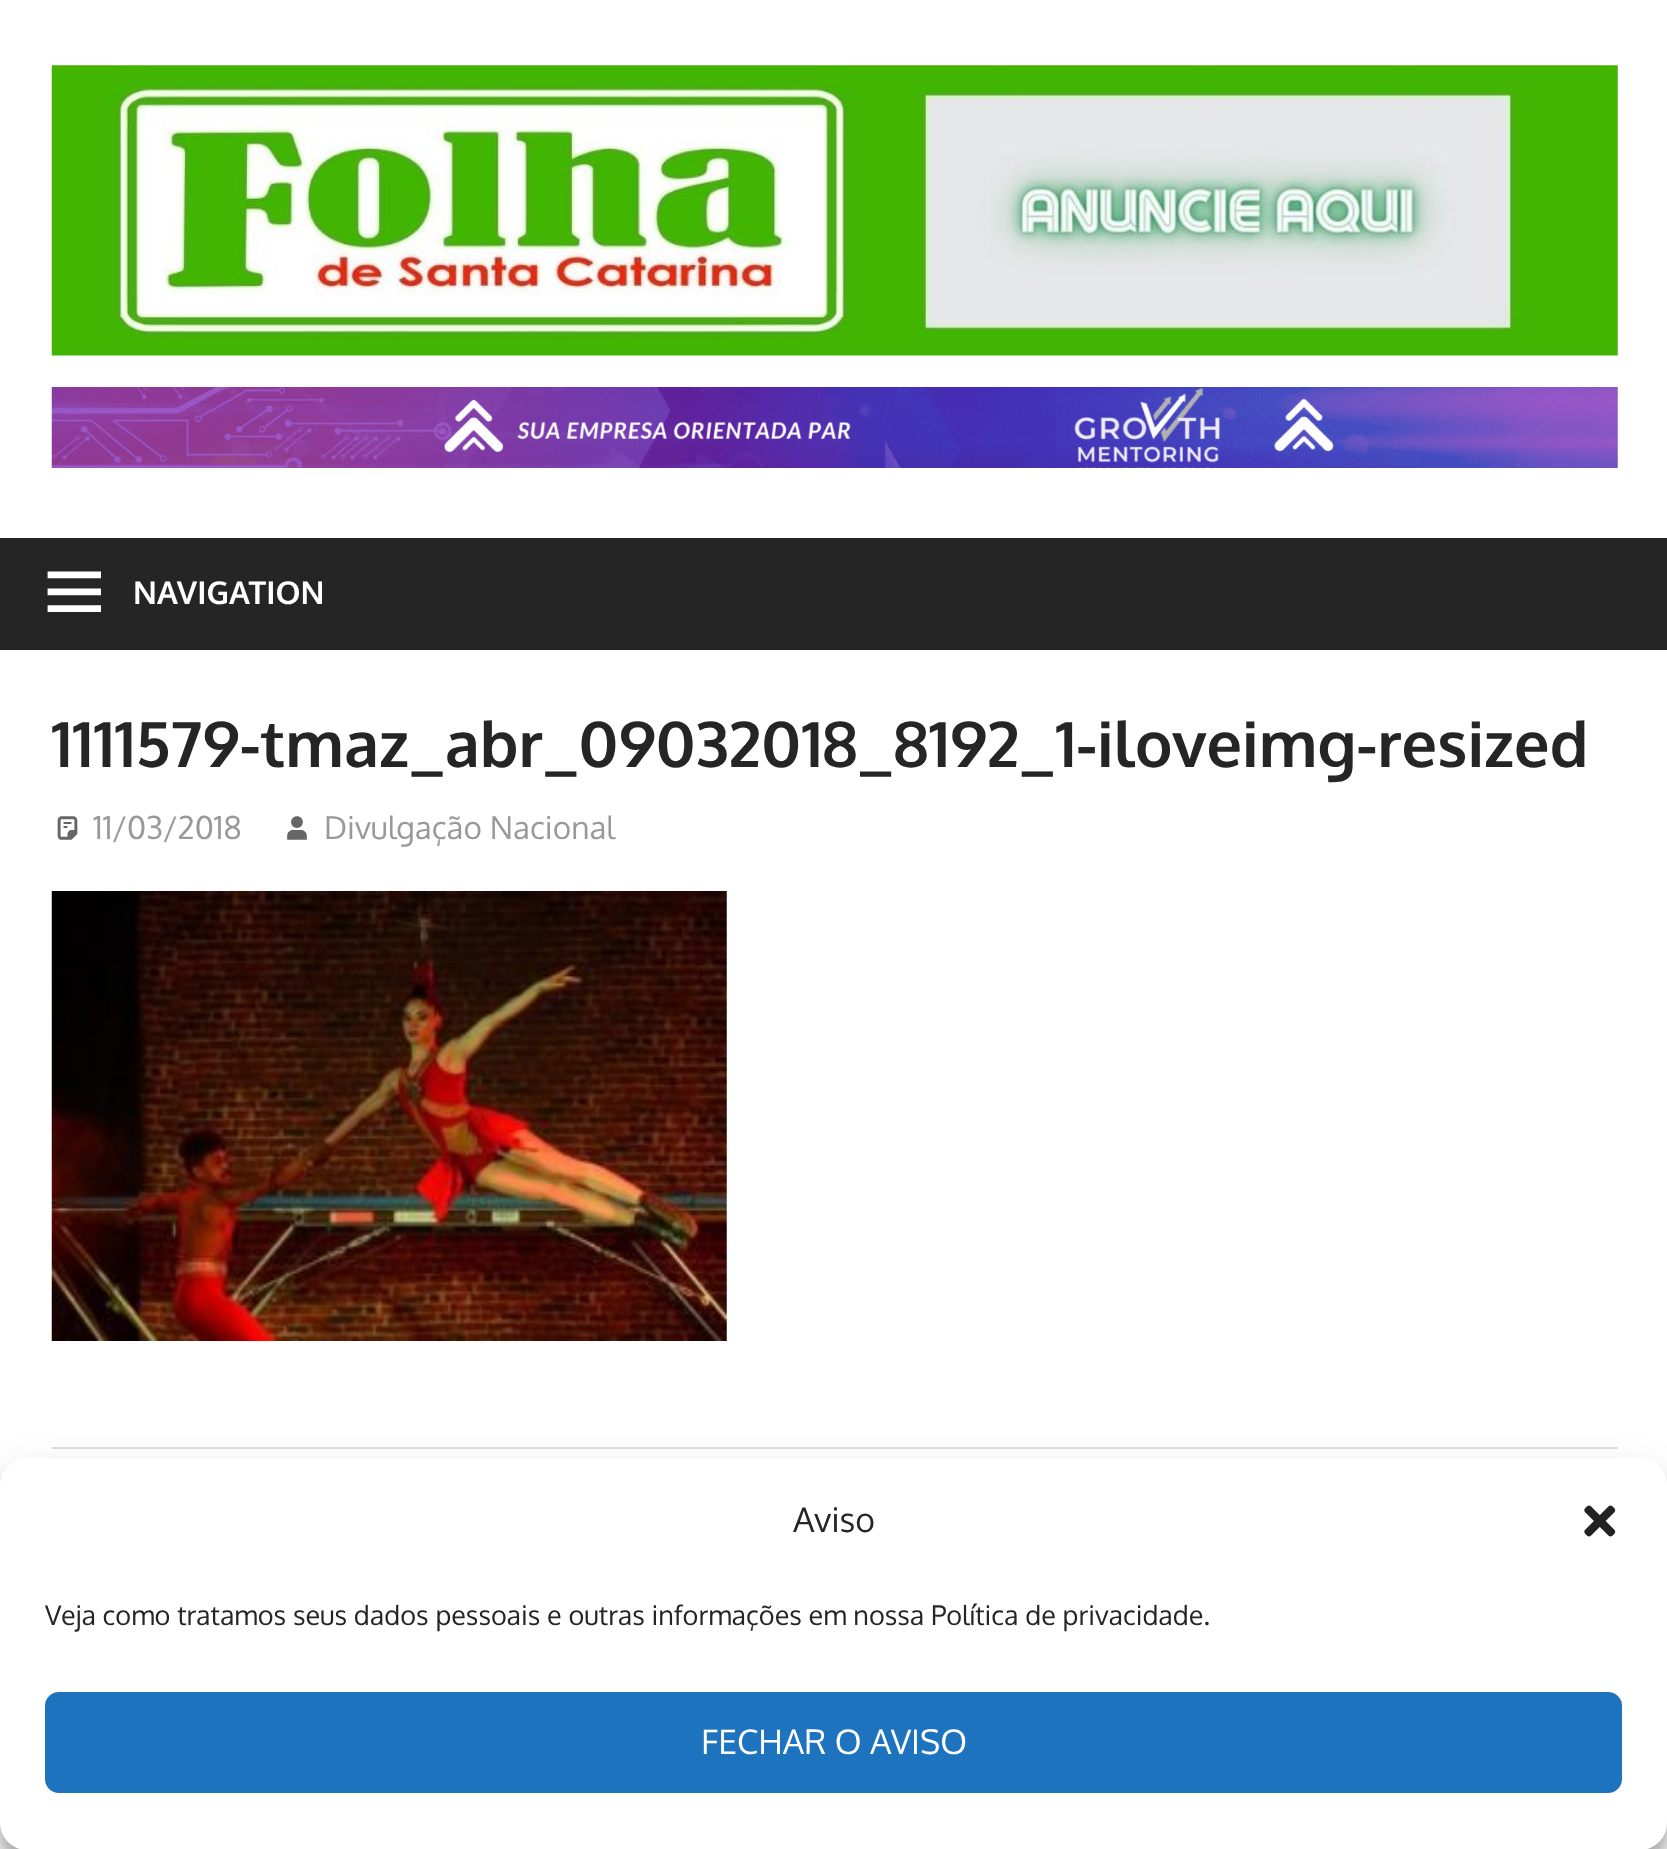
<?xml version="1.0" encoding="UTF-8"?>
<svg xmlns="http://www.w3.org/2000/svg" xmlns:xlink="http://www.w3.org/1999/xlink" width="1667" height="1849">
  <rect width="100%" height="100%" fill="#ffffff" />
  <image x="51" y="65" width="1567" height="291" xlink:href="image1.png" />
  <image x="51" y="387" width="1567" height="81" xlink:href="image2.png" />
  <rect y="538" width="1667" height="112" fill="#252525" />
  <image x="47" y="571" width="54" height="41" xlink:href="image3.png" />
  <image x="57" y="816" width="21" height="24" xlink:href="image4.png" />
  <image x="287" y="816" width="20" height="24" xlink:href="image5.png" />
  <image x="51" y="891" width="676" height="450" xlink:href="image6.png" />
  <rect x="52" y="1447" width="1566" height="2" fill="#dddddd" />
  <rect y="1472" width="1667" height="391" rx="27" fill="#000000" fill-opacity="0.23" filter="blur(7px)" />
  <rect y="1481" width="1667" height="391" rx="27" fill="#000000" fill-opacity="0.19" filter="blur(22.5px)" />
  <rect y="1458" width="1667" height="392" rx="27" fill="#ffffff" />
  <image x="1584" y="1505" width="32" height="32" xlink:href="image7.png" />
  <rect x="46" y="1693" width="1575" height="99" rx="13" fill="#1e73be" stroke="#1e73be" stroke-width="2" />
  <text x="133" y="604" style="font-family: Oxygen; font-size: 31.5px; font-weight: bold; fill: #ffffff">NAVIGATION</text>
  <text x="51" y="767" style="font-family: Oxygen; font-size: 63px; font-weight: bold; fill: #252525">1111579-tmaz_abr_09032018_8192_1-iloveimg-resized</text>
  <text x="93" y="839" style="font-family: Oxygen; font-size: 31.5px; fill: #999999">11/03/2018</text>
  <text x="324" y="839" style="font-family: Oxygen; font-size: 31.5px; fill: #999999">Divulgação Nacional</text>
  <text x="793" y="1532" style="font-family: Oxygen; font-size: 33.75px; fill: #252525">Aviso</text>
  <text x="45" y="1625" style="font-family: Oxygen; font-size: 27px; fill: #252525">Veja como tratamos seus dados pessoais e outras informações em nossa Política de privacidade.</text>
  <text x="701" y="1754" style="font-family: Oxygen; font-size: 33.75px; fill: #ffffff">FECHAR O AVISO</text>
</svg>
